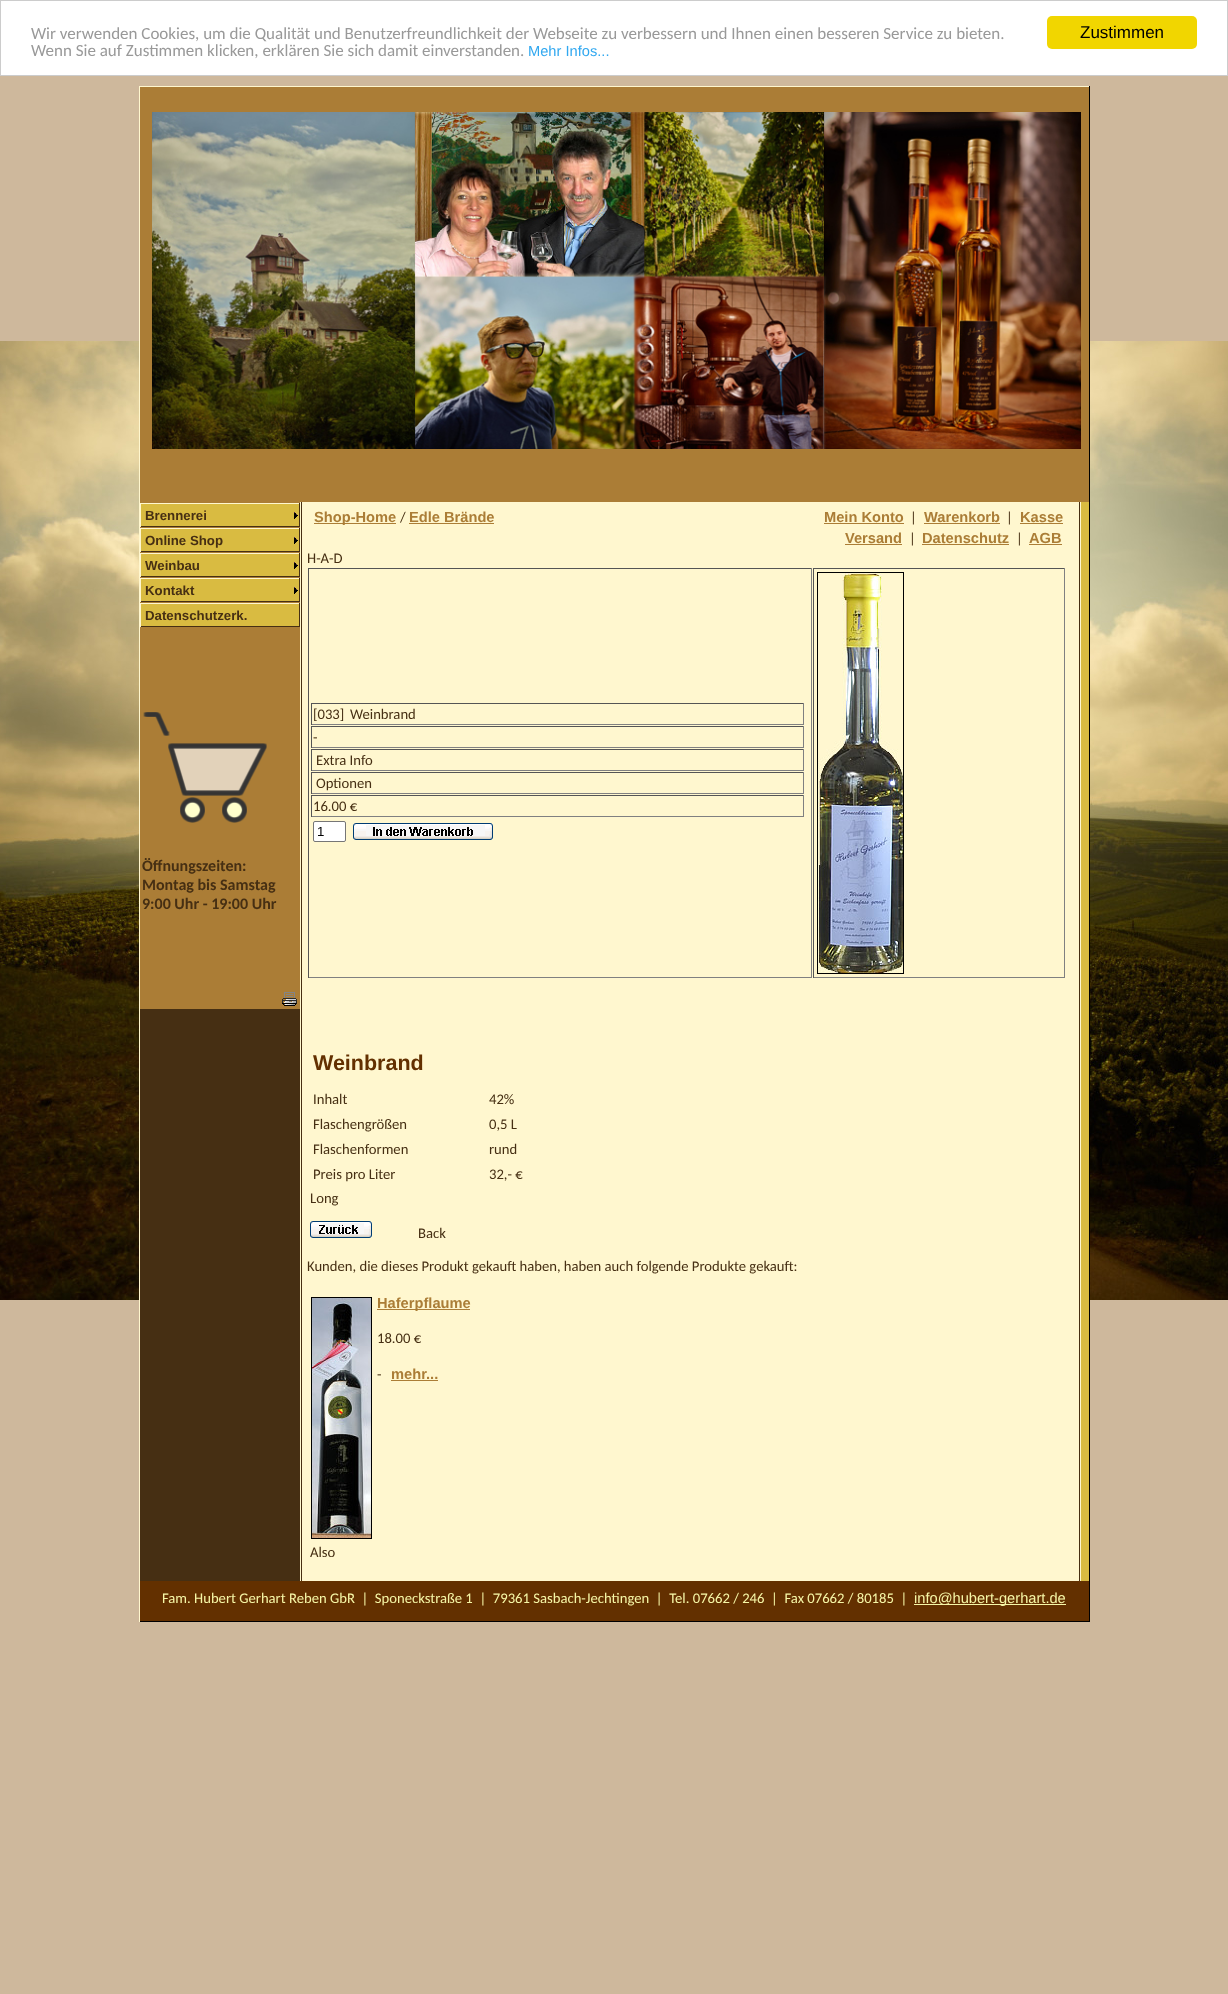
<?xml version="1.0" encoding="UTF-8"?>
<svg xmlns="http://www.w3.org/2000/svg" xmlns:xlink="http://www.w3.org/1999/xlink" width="1228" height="1994">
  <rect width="100%" height="100%" fill="#ceb89c" />
  <image x="0" y="341" width="1228" height="959" xlink:href="image1.png" />
  <rect x="0.5" y="0.5" width="1227" height="75" fill="#ffffff" stroke="#cccccc" />
  <rect x="1047" y="16" width="150" height="33" rx="5" fill="#f1d600" />
  <rect x="139" y="86" width="1" height="1536" fill="#fff7cf" />
  <rect x="140" y="87" width="949" height="415" fill="#ab7d36" />
  <rect x="140" y="86" width="950" height="1" fill="#fff7cf" />
  <rect x="1089" y="86" width="1" height="416" fill="#000001" />
  <image x="152" y="112" width="929" height="337" xlink:href="image2.png" />
  <rect x="140" y="1009" width="160" height="572" fill="#462f13" />
  <rect x="300" y="502" width="1" height="1079" fill="#fff7cf" />
  <rect x="140" y="502" width="160" height="101" fill="#ab7d36" />
  <rect x="141" y="504" width="158" height="22" fill="#d9bb41" />
  <rect x="140" y="503" width="160" height="1" fill="#fff7cf" />
  <rect x="299" y="503" width="1" height="24" fill="#462f13" />
  <rect x="140" y="526" width="160" height="1" fill="#462f13" />
  <rect x="140" y="503" width="1" height="24" fill="#fff7cf" />
  <image x="294" y="512" width="4" height="7" xlink:href="image3.png" />
  <rect x="141" y="529" width="158" height="22" fill="#d9bb41" />
  <rect x="140" y="528" width="160" height="1" fill="#fff7cf" />
  <rect x="299" y="528" width="1" height="24" fill="#462f13" />
  <rect x="140" y="551" width="160" height="1" fill="#462f13" />
  <rect x="140" y="528" width="1" height="24" fill="#fff7cf" />
  <image x="294" y="537" width="4" height="7" xlink:href="image3.png" />
  <rect x="141" y="554" width="158" height="22" fill="#d9bb41" />
  <rect x="140" y="553" width="160" height="1" fill="#fff7cf" />
  <rect x="299" y="553" width="1" height="24" fill="#462f13" />
  <rect x="140" y="576" width="160" height="1" fill="#462f13" />
  <rect x="140" y="553" width="1" height="24" fill="#fff7cf" />
  <image x="294" y="562" width="4" height="7" xlink:href="image3.png" />
  <rect x="141" y="579" width="158" height="22" fill="#d9bb41" />
  <rect x="140" y="578" width="160" height="1" fill="#fff7cf" />
  <rect x="299" y="578" width="1" height="24" fill="#462f13" />
  <rect x="140" y="601" width="160" height="1" fill="#462f13" />
  <rect x="140" y="578" width="1" height="24" fill="#fff7cf" />
  <image x="294" y="587" width="4" height="7" xlink:href="image3.png" />
  <rect x="141" y="604" width="158" height="22" fill="#d9bb41" />
  <rect x="140" y="603" width="160" height="1" fill="#fff7cf" />
  <rect x="299" y="603" width="1" height="24" fill="#462f13" />
  <rect x="140" y="626" width="160" height="1" fill="#462f13" />
  <rect x="140" y="603" width="1" height="24" fill="#fff7cf" />
  <rect x="140" y="627" width="160" height="382" fill="#ab7d36" />
  <image x="143" y="712" width="124" height="111" xlink:href="image4.png" />
  <image x="282" y="992" width="15" height="14" xlink:href="image5.png" />
  <rect x="302" y="502" width="777" height="1079" fill="#fff7cf" />
  <rect x="1079" y="502" width="1" height="1079" fill="#462f13" />
  <rect x="301" y="502" width="1" height="1079" fill="#462f13" />
  <rect x="314" y="523" width="82" height="1" fill="#ab7d36" />
  <rect x="409" y="523" width="85" height="1" fill="#ab7d36" />
  <rect x="824" y="523" width="80" height="1" fill="#ab7d36" />
  <rect x="924" y="523" width="76" height="1" fill="#ab7d36" />
  <rect x="1020" y="523" width="43" height="1" fill="#ab7d36" />
  <rect x="845" y="544" width="57" height="1" fill="#ab7d36" />
  <rect x="922" y="544" width="87" height="1" fill="#ab7d36" />
  <rect x="1029" y="544" width="33" height="1" fill="#ab7d36" />
  <rect x="308" y="568" width="504" height="1" fill="#555555" />
  <rect x="811" y="568" width="1" height="410" fill="#808080" />
  <rect x="308" y="977" width="504" height="1" fill="#808080" />
  <rect x="308" y="568" width="1" height="410" fill="#555555" />
  <rect x="311" y="703" width="493" height="1" fill="#555555" />
  <rect x="803" y="703" width="1" height="22" fill="#808080" />
  <rect x="311" y="724" width="493" height="1" fill="#808080" />
  <rect x="311" y="703" width="1" height="22" fill="#555555" />
  <rect x="311" y="726" width="493" height="1" fill="#555555" />
  <rect x="803" y="726" width="1" height="22" fill="#808080" />
  <rect x="311" y="747" width="493" height="1" fill="#808080" />
  <rect x="311" y="726" width="1" height="22" fill="#555555" />
  <rect x="311" y="749" width="493" height="1" fill="#555555" />
  <rect x="803" y="749" width="1" height="22" fill="#808080" />
  <rect x="311" y="770" width="493" height="1" fill="#808080" />
  <rect x="311" y="749" width="1" height="22" fill="#555555" />
  <rect x="311" y="772" width="493" height="1" fill="#555555" />
  <rect x="803" y="772" width="1" height="22" fill="#808080" />
  <rect x="311" y="793" width="493" height="1" fill="#808080" />
  <rect x="311" y="772" width="1" height="22" fill="#555555" />
  <rect x="311" y="795" width="493" height="1" fill="#555555" />
  <rect x="803" y="795" width="1" height="22" fill="#808080" />
  <rect x="311" y="816" width="493" height="1" fill="#808080" />
  <rect x="311" y="795" width="1" height="22" fill="#555555" />
  <rect x="313.5" y="821.5" width="32" height="20" rx="1.5" fill="#ffffff" stroke="#767676" />
  <image x="353" y="823" width="140" height="17" xlink:href="image6.png" />
  <rect x="813" y="568" width="252" height="1" fill="#555555" />
  <rect x="1064" y="568" width="1" height="410" fill="#808080" />
  <rect x="813" y="977" width="252" height="1" fill="#808080" />
  <rect x="813" y="568" width="1" height="410" fill="#555555" />
  <rect x="817.5" y="572.5" width="86" height="401" fill="none" stroke="#000000" />
  <image x="818" y="573" width="85" height="400" xlink:href="image7.png" />
  <image x="310" y="1221" width="62" height="17" xlink:href="image8.png" />
  <rect x="311.5" y="1297.5" width="60" height="241" fill="none" stroke="#000000" />
  <image x="312" y="1298" width="59" height="240" xlink:href="image9.png" />
  <rect x="377" y="1309" width="93" height="1" fill="#ab7d36" />
  <rect x="391" y="1380" width="47" height="1" fill="#ab7d36" />
  <rect x="1081" y="502" width="8" height="1079" fill="#d9bb41" />
  <rect x="1080" y="502" width="1" height="1079" fill="#fff7cf" />
  <rect x="140" y="1581" width="949" height="40" fill="#633000" />
  <rect x="1089" y="502" width="1" height="1120" fill="#000001" />
  <rect x="140" y="1621" width="950" height="1" fill="#000001" />
  <rect x="914" y="1604" width="152" height="1" fill="#f6f6a6" />
  <text x="31" y="39" style="font-family: Carlito; font-size: 17px; fill: #999999">Wir verwenden Cookies, um die Qualität und Benutzerfreundlichkeit der Webseite zu verbessern und Ihnen einen besseren Service zu bieten.</text>
  <text x="31" y="56" style="font-family: Carlito; font-size: 17px; fill: #999999">Wenn Sie auf Zustimmen klicken, erklären Sie sich damit einverstanden.</text>
  <text x="528" y="56" style="font-family: Liberation Sans; font-size: 14.67px; fill: #31a8f0">Mehr Infos...</text>
  <text x="1080" y="38" style="font-family: Liberation Sans; font-size: 17px; fill: #000000">Zustimmen</text>
  <text x="145" y="520" style="font-family: Liberation Sans; font-size: 13.25px; font-weight: bold; fill: #462f13">Brennerei</text>
  <text x="145" y="545" style="font-family: Liberation Sans; font-size: 13.25px; font-weight: bold; fill: #462f13">Online Shop</text>
  <text x="145" y="570" style="font-family: Liberation Sans; font-size: 13.25px; font-weight: bold; fill: #462f13">Weinbau</text>
  <text x="145" y="595" style="font-family: Liberation Sans; font-size: 13.25px; font-weight: bold; fill: #462f13">Kontakt</text>
  <text x="145" y="620" style="font-family: Liberation Sans; font-size: 13.25px; font-weight: bold; fill: #462f13">Datenschutzerk.</text>
  <text x="142" y="871" style="font-family: Carlito; font-size: 16px; font-weight: bold; fill: #462f13">Öffnungszeiten:</text>
  <text x="142" y="890" style="font-family: Carlito; font-size: 16px; font-weight: bold; fill: #462f13">Montag bis Samstag</text>
  <text x="142" y="909" style="font-family: Carlito; font-size: 16px; font-weight: bold; fill: #462f13">9:00 Uhr - 19:00 Uhr</text>
  <text x="314" y="522" style="font-family: Liberation Sans; font-size: 14.67px; font-weight: bold; fill: #ab7d36">Shop-Home</text>
  <text x="400" y="522" style="font-family: Carlito; font-size: 14.67px; fill: #462f13">/</text>
  <text x="409" y="522" style="font-family: Liberation Sans; font-size: 14.67px; font-weight: bold; fill: #ab7d36">Edle Brände</text>
  <text x="824" y="522" style="font-family: Liberation Sans; font-size: 14.67px; font-weight: bold; fill: #ab7d36">Mein Konto</text>
  <text x="910" y="522" style="font-family: Carlito; font-size: 14.67px; fill: #462f13">|</text>
  <text x="924" y="522" style="font-family: Liberation Sans; font-size: 14.67px; font-weight: bold; fill: #ab7d36">Warenkorb</text>
  <text x="1006" y="522" style="font-family: Carlito; font-size: 14.67px; fill: #462f13">|</text>
  <text x="1020" y="522" style="font-family: Liberation Sans; font-size: 14.67px; font-weight: bold; fill: #ab7d36">Kasse</text>
  <text x="845" y="543" style="font-family: Liberation Sans; font-size: 14.67px; font-weight: bold; fill: #ab7d36">Versand</text>
  <text x="909" y="543" style="font-family: Carlito; font-size: 14.67px; fill: #462f13">|</text>
  <text x="922" y="543" style="font-family: Liberation Sans; font-size: 14.67px; font-weight: bold; fill: #ab7d36">Datenschutz</text>
  <text x="1016" y="543" style="font-family: Carlito; font-size: 14.67px; fill: #462f13">|</text>
  <text x="1029" y="543" style="font-family: Liberation Sans; font-size: 14.67px; font-weight: bold; fill: #ab7d36">AGB</text>
  <text x="307" y="563" style="font-family: Carlito; font-size: 14.67px; fill: #462f13">H-A-D</text>
  <text x="313" y="719" style="font-family: Carlito; font-size: 14.67px; fill: #462f13">[033]</text>
  <text x="350" y="719" style="font-family: Carlito; font-size: 14.67px; fill: #462f13">Weinbrand</text>
  <text x="313" y="742" style="font-family: Carlito; font-size: 14.67px; fill: #462f13">-</text>
  <text x="316" y="765" style="font-family: Carlito; font-size: 14.67px; fill: #462f13">Extra Info</text>
  <text x="316" y="788" style="font-family: Carlito; font-size: 14.67px; fill: #462f13">Optionen</text>
  <text x="313" y="811" style="font-family: Carlito; font-size: 14.67px; fill: #462f13">16.00 €</text>
  <text x="317" y="836" style="font-family: Liberation Sans; font-size: 13.25px; fill: #000000">1</text>
  <text x="313" y="1070" style="font-family: Liberation Sans; font-size: 21.5px; font-weight: bold; fill: #633000">Weinbrand</text>
  <text x="313" y="1104" style="font-family: Carlito; font-size: 14.67px; fill: #462f13">Inhalt</text>
  <text x="489" y="1104" style="font-family: Carlito; font-size: 14.67px; fill: #462f13">42%</text>
  <text x="313" y="1129" style="font-family: Carlito; font-size: 14.67px; fill: #462f13">Flaschengrößen</text>
  <text x="489" y="1129" style="font-family: Carlito; font-size: 14.67px; fill: #462f13">0,5 L</text>
  <text x="313" y="1154" style="font-family: Carlito; font-size: 14.67px; fill: #462f13">Flaschenformen</text>
  <text x="489" y="1154" style="font-family: Carlito; font-size: 14.67px; fill: #462f13">rund</text>
  <text x="313" y="1179" style="font-family: Carlito; font-size: 14.67px; fill: #462f13">Preis pro Liter</text>
  <text x="489" y="1179" style="font-family: Carlito; font-size: 14.67px; fill: #462f13">32,- €</text>
  <text x="310" y="1203" style="font-family: Carlito; font-size: 14.67px; fill: #462f13">Long</text>
  <text x="418" y="1238" style="font-family: Carlito; font-size: 14.67px; fill: #462f13">Back</text>
  <text x="307" y="1271" style="font-family: Carlito; font-size: 14.67px; fill: #462f13">Kunden, die dieses Produkt gekauft haben, haben auch folgende Produkte gekauft:</text>
  <text x="377" y="1308" style="font-family: Liberation Sans; font-size: 14.67px; font-weight: bold; fill: #ab7d36">Haferpflaume</text>
  <text x="377" y="1343" style="font-family: Carlito; font-size: 14.67px; fill: #462f13">18.00 €</text>
  <text x="377" y="1379" style="font-family: Carlito; font-size: 14.67px; fill: #462f13">-</text>
  <text x="391" y="1379" style="font-family: Liberation Sans; font-size: 14.67px; font-weight: bold; fill: #ab7d36">mehr...</text>
  <text x="310" y="1557" style="font-family: Carlito; font-size: 14.67px; fill: #462f13">Also</text>
  <text x="162" y="1603" style="font-family: Carlito; font-size: 14.67px; fill: #f6f6a6" xml:space="preserve">Fam. Hubert Gerhart Reben GbR  |  Sponeckstraße 1  |  79361 Sasbach-Jechtingen  |  Tel. 07662 / 246  |  Fax 07662 / 80185  |</text>
  <text x="914" y="1603" style="font-family: Liberation Sans; font-size: 14.67px; fill: #f6f6a6">info@hubert-gerhart.de</text>
</svg>
